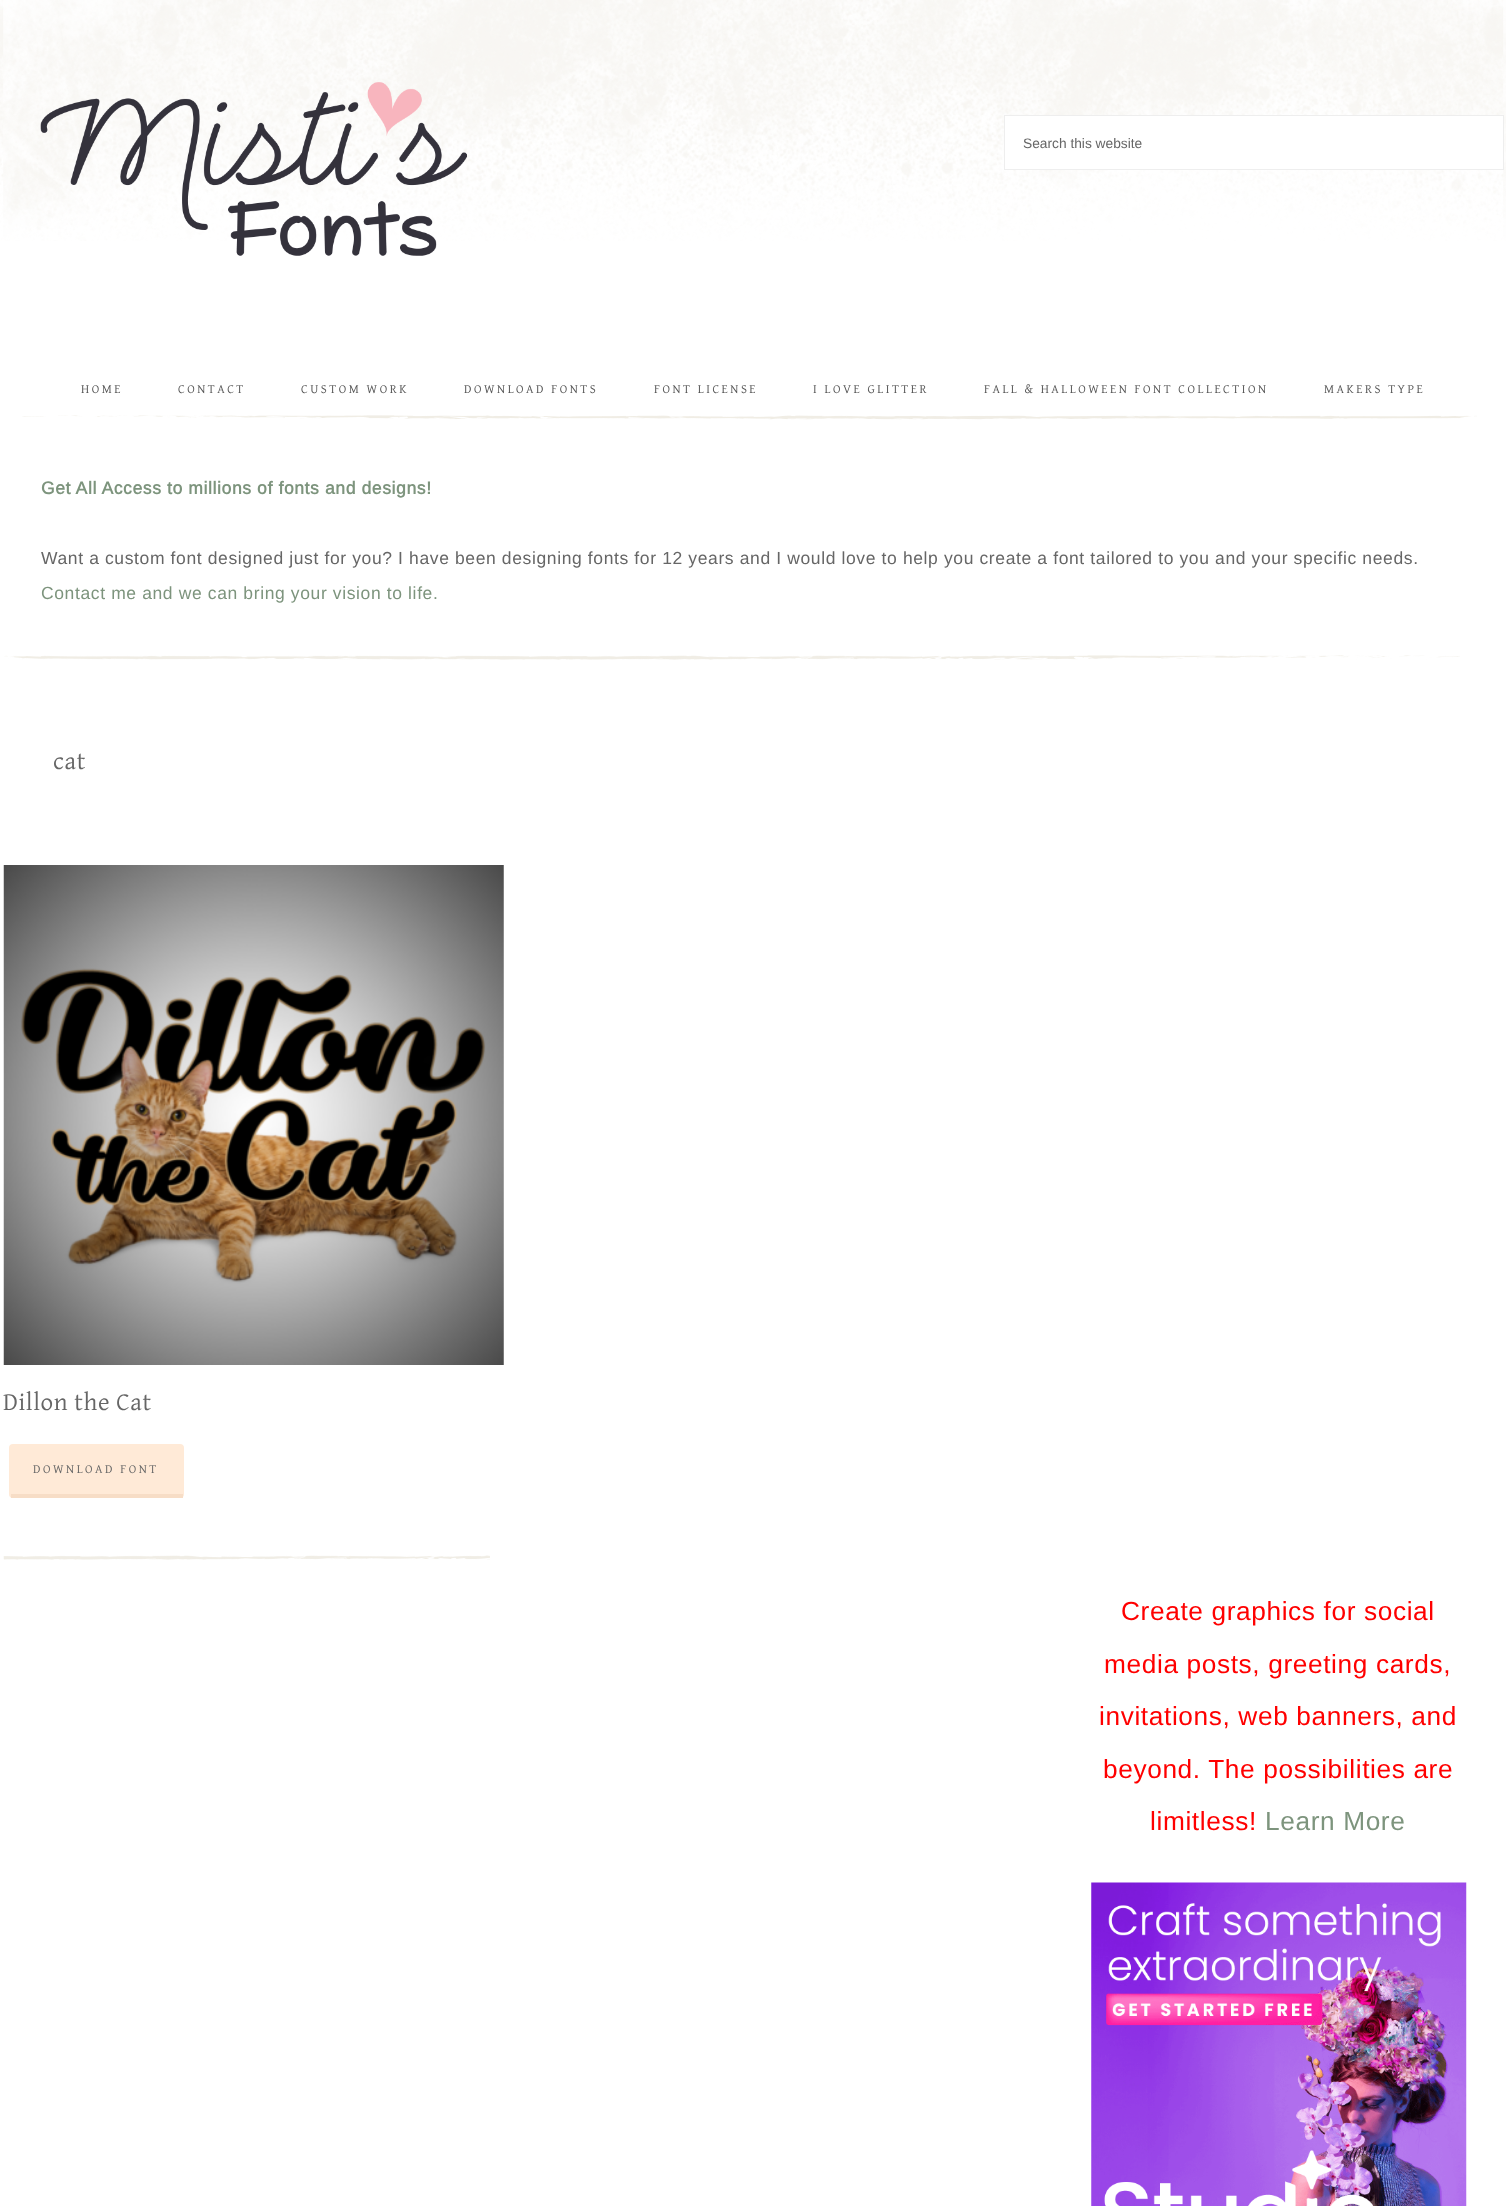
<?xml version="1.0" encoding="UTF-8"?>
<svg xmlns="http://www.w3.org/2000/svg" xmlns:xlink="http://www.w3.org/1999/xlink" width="1506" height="2206">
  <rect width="100%" height="100%" fill="#ffffff" />
  <image x="0" y="0" width="1506" height="241" xlink:href="image1.png" />
  <image x="40" y="82" width="427" height="174" xlink:href="image2.png" />
  <rect x="1004.5" y="115.5" width="499" height="54" fill="#ffffff" stroke="#eeeeee" />
  <image x="22" y="415" width="1455" height="5" xlink:href="image3.png" />
  <image x="4" y="655" width="1456" height="5" xlink:href="image4.png" />
  <image x="3" y="865" width="501" height="500" xlink:href="image5.png" />
  <rect x="9" y="1444" width="175" height="54" rx="4" fill="#ffead7" />
  <rect x="11" y="1494" width="172" height="4" fill="#f7ddc6" />
  <image x="3" y="1555" width="487" height="5" xlink:href="image6.png" />
  <image x="1091" y="1882" width="376" height="324" xlink:href="image7.png" />
  <text x="1023" y="148" style="font-family: Arimo; font-size: 13.75px; fill: #666666">Search this website</text>
  <text x="81" y="393" style="font-family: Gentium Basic; font-size: 12.5px; letter-spacing: 2.5px; fill: #555555">HOME</text>
  <text x="178" y="393" style="font-family: Gentium Basic; font-size: 12.5px; letter-spacing: 2.5px; fill: #555555">CONTACT</text>
  <text x="301" y="393" style="font-family: Gentium Basic; font-size: 12.5px; letter-spacing: 2.5px; fill: #555555">CUSTOM WORK</text>
  <text x="464" y="393" style="font-family: Gentium Basic; font-size: 12.5px; letter-spacing: 2.5px; fill: #555555">DOWNLOAD FONTS</text>
  <text x="654" y="393" style="font-family: Gentium Basic; font-size: 12.5px; letter-spacing: 2.5px; fill: #555555">FONT LICENSE</text>
  <text x="813" y="393" style="font-family: Gentium Basic; font-size: 12.5px; letter-spacing: 2.5px; fill: #555555">I LOVE GLITTER</text>
  <text x="984" y="393" style="font-family: Gentium Basic; font-size: 12.5px; letter-spacing: 2.5px; fill: #555555">FALL &amp; HALLOWEEN FONT COLLECTION</text>
  <text x="1324" y="393" style="font-family: Gentium Basic; font-size: 12.5px; letter-spacing: 2.5px; fill: #555555">MAKERS TYPE</text>
  <text x="41" y="494" style="font-family: Arimo; font-size: 17.5px; font-weight: bold; letter-spacing: 0.62px; fill: #7d947d">Get All Access to millions of fonts and designs!</text>
  <text x="41" y="564" style="font-family: Arimo; font-size: 17.5px; letter-spacing: 0.62px; fill: #666666">Want a custom font designed just for you? I have been designing fonts for 12 years and I would love to help you create a font tailored to you and your specific needs.</text>
  <text x="41" y="599" style="font-family: Arimo; font-size: 17.5px; letter-spacing: 0.62px; fill: #7d947d">Contact me and we can bring your vision to life.</text>
  <text x="53" y="769" style="font-family: Gentium Basic; font-size: 25px; letter-spacing: 0.62px; fill: #666666">cat</text>
  <text x="3" y="1410" style="font-family: Gentium Basic; font-size: 25px; letter-spacing: 0.62px; fill: #666666">Dillon the Cat</text>
  <text x="33" y="1473" style="font-family: Gentium Basic; font-size: 12.5px; letter-spacing: 2.5px; fill: #666666">DOWNLOAD FONT</text>
  <text x="1121" y="1620" style="font-family: Arimo; font-size: 26.25px; letter-spacing: 0.62px; fill: #ff0000">Create graphics for social</text>
  <text x="1104" y="1673" style="font-family: Arimo; font-size: 26.25px; letter-spacing: 0.62px; fill: #ff0000">media posts, greeting cards,</text>
  <text x="1099" y="1725" style="font-family: Arimo; font-size: 26.25px; letter-spacing: 0.62px; fill: #ff0000">invitations, web banners, and</text>
  <text x="1103" y="1778" style="font-family: Arimo; font-size: 26.25px; letter-spacing: 0.62px; fill: #ff0000">beyond. The possibilities are</text>
  <text x="1150" y="1830" style="font-family: Arimo; font-size: 26.25px; letter-spacing: 0.62px; fill: #ff0000">limitless!</text>
  <text x="1265" y="1830" style="font-family: Arimo; font-size: 26.25px; letter-spacing: 0.62px; fill: #7d947d">Learn More</text>
</svg>
